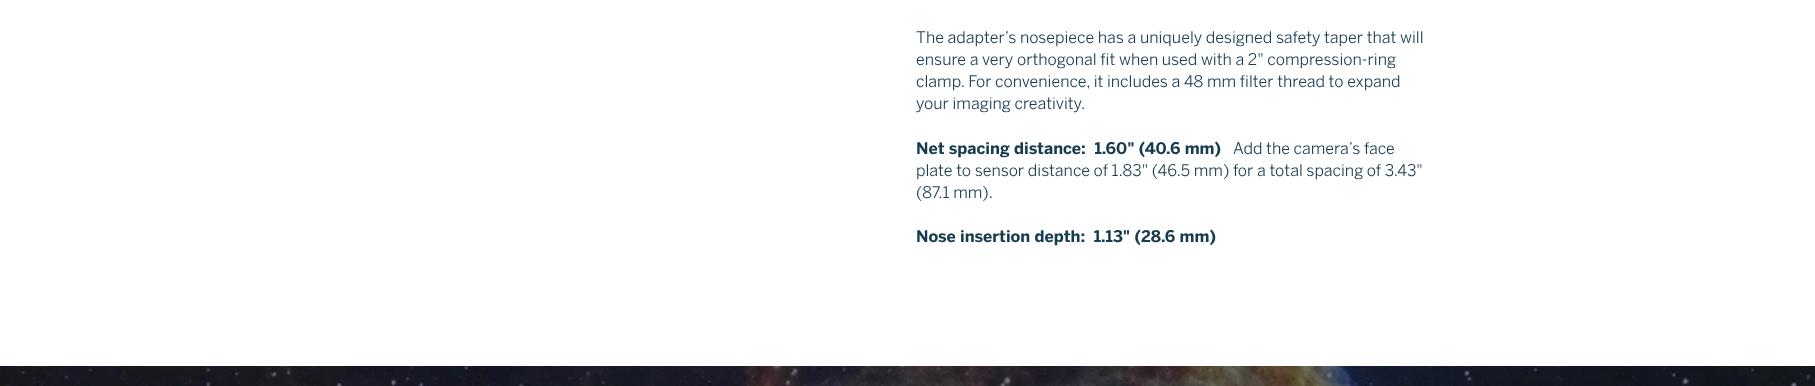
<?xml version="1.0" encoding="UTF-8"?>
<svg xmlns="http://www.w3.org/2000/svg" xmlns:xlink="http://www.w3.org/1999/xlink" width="1815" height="386">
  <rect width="100%" height="100%" fill="#ffffff" />
  <image x="0" y="366" width="1815" height="20" xlink:href="image1.png" />
  <text x="916" y="43" style="font-family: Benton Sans; font-size: 16px; fill: #173b4f">The adapter’s nosepiece has a uniquely designed safety taper that will</text>
  <text x="916" y="65" style="font-family: Benton Sans; font-size: 16px; fill: #173b4f">ensure a very orthogonal fit when used with a 2" compression-ring</text>
  <text x="916" y="87" style="font-family: Benton Sans; font-size: 16px; fill: #173b4f">clamp. For convenience, it includes a 48 mm filter thread to expand</text>
  <text x="916" y="109" style="font-family: Benton Sans; font-size: 16px; fill: #173b4f">your imaging creativity.</text>
  <text x="916" y="154" style="font-family: Benton Sans; font-size: 16px; font-weight: bold; fill: #173b4f" xml:space="preserve">Net spacing distance:  1.60" (40.6 mm)</text>
  <text x="1233" y="154" style="font-family: Benton Sans; font-size: 16px; fill: #173b4f">Add the camera’s face</text>
  <text x="916" y="176" style="font-family: Benton Sans; font-size: 16px; fill: #173b4f">plate to sensor distance of 1.83" (46.5 mm) for a total spacing of 3.43"</text>
  <text x="916" y="198" style="font-family: Benton Sans; font-size: 16px; fill: #173b4f">(87.1 mm).</text>
  <text x="916" y="242" style="font-family: Benton Sans; font-size: 16px; font-weight: bold; fill: #173b4f" xml:space="preserve">Nose insertion depth:  1.13" (28.6 mm)</text>
</svg>
